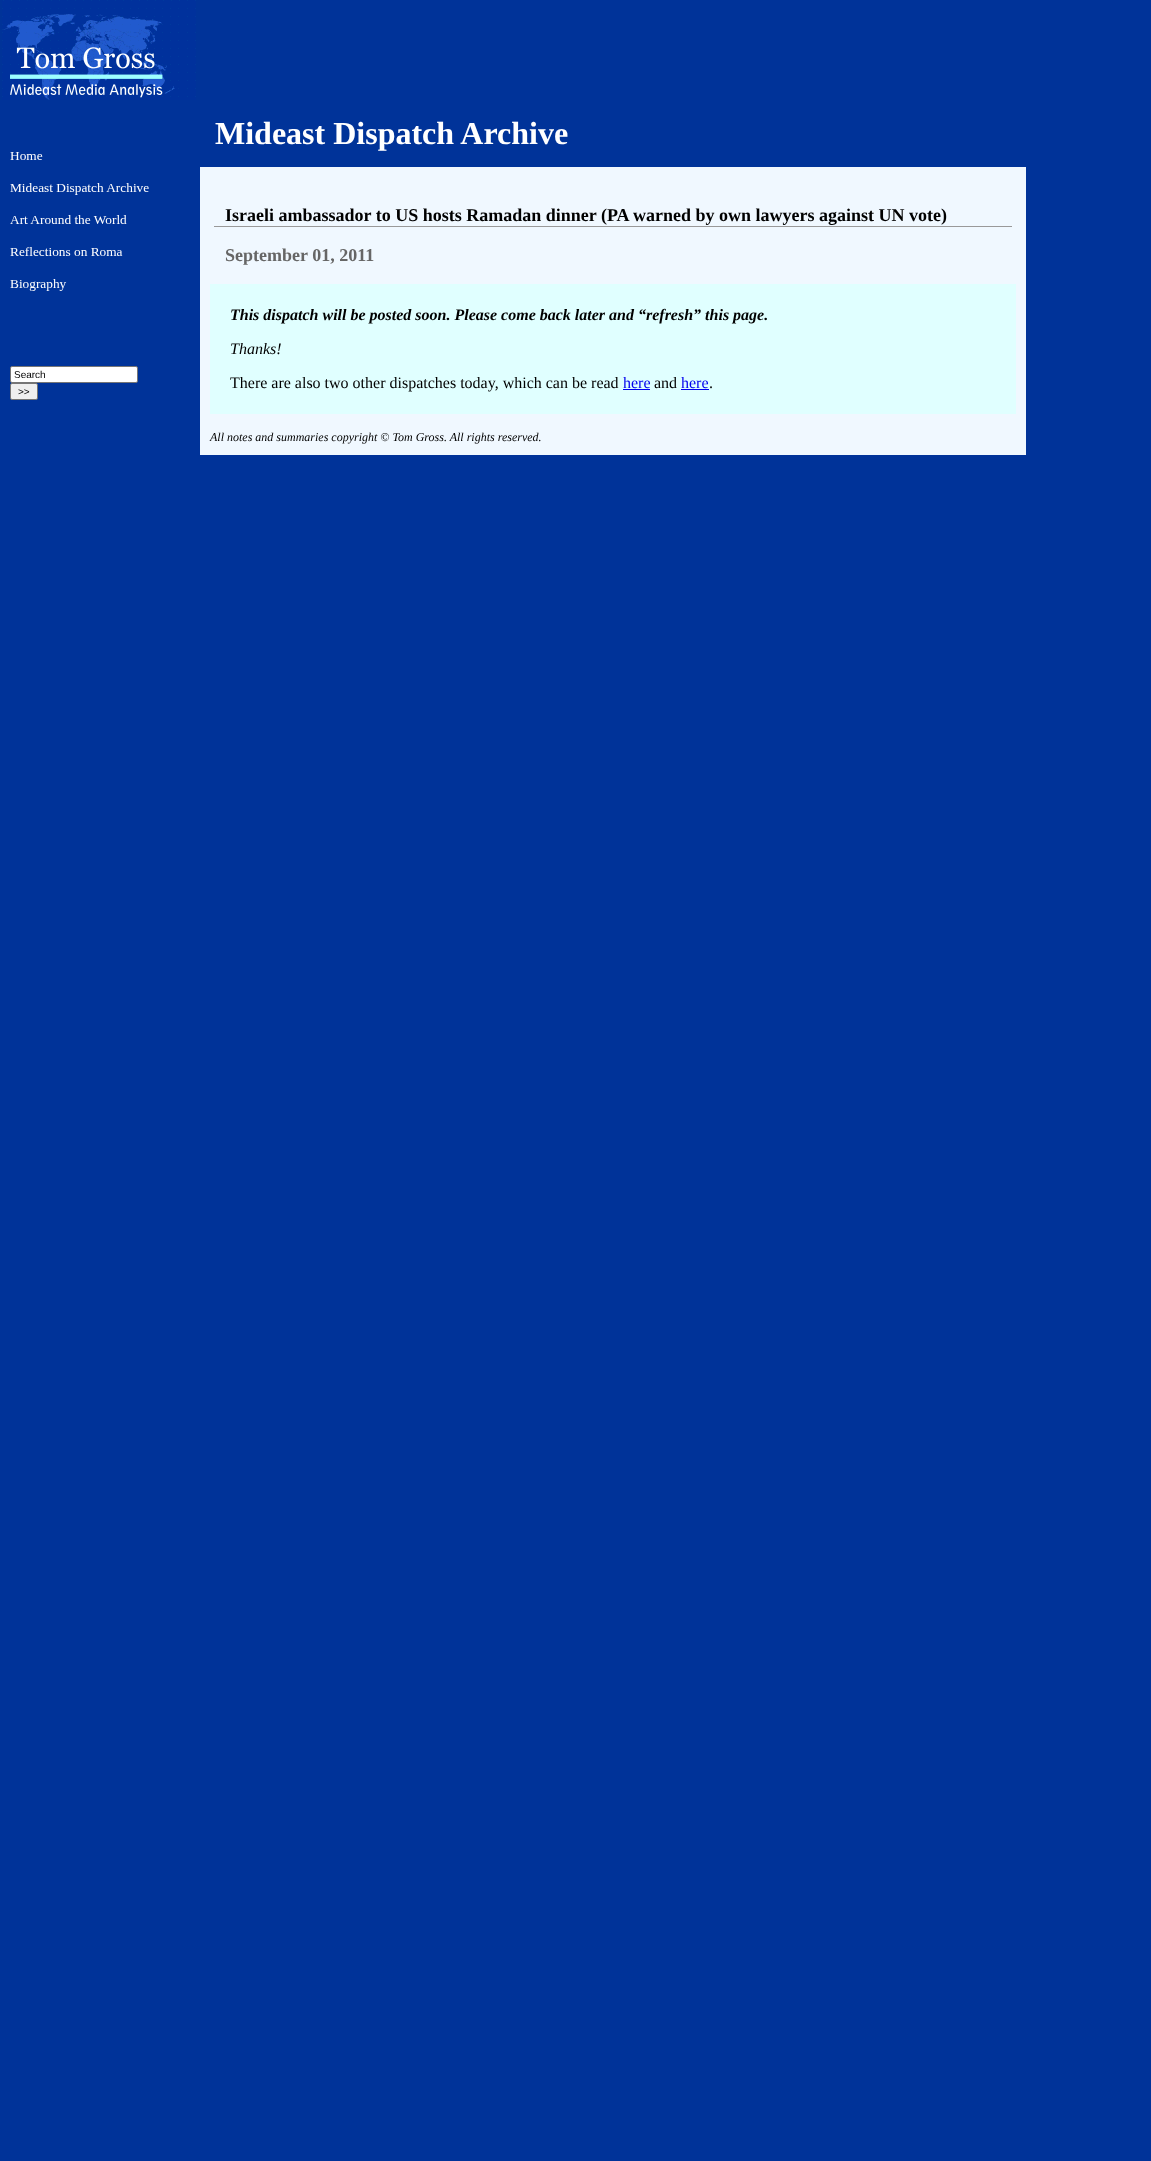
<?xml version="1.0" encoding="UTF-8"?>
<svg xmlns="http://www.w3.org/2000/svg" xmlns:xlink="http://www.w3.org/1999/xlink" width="1151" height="2161">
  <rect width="100%" height="100%" fill="#003399" />
  <image x="2" y="0" width="194" height="100" xlink:href="image1.png" />
  <image x="10" y="152" width="139" height="139" xlink:href="image2.png" />
  <rect x="10.5" y="366.5" width="127" height="16" rx="1.5" fill="#ffffff" stroke="#767676" />
  <rect x="10.5" y="383.5" width="27" height="16" rx="1.5" fill="#efefef" stroke="#767676" />
  <rect x="200" y="167" width="826" height="288" fill="#f0f8ff" />
  <rect x="214" y="226" width="798" height="1" fill="#999999" />
  <rect x="210" y="284" width="806" height="130" fill="#e0ffff" />
  <rect x="623" y="389" width="27" height="1" fill="#0000ee" />
  <rect x="681" y="389" width="28" height="1" fill="#0000ee" />
  <text x="215" y="144" style="font-family: Liberation Serif; font-size: 32px; font-weight: bold; fill: #ffffff">Mideast Dispatch Archive</text>
  <text x="14" y="378" style="font-family: Liberation Sans; font-size: 10px; fill: #000000">Search</text>
  <text x="18" y="395" style="font-family: Liberation Sans; font-size: 10px; fill: #000000">&gt;&gt;</text>
  <text x="225" y="221" style="font-family: Liberation Serif; font-size: 18px; font-weight: bold; fill: #000000">Israeli ambassador to US hosts Ramadan dinner (PA warned by own lawyers against UN vote)</text>
  <text x="225" y="261" style="font-family: Liberation Serif; font-size: 18px; font-weight: bold; fill: #666666">September 01, 2011</text>
  <text x="230" y="320" style="font-family: Liberation Serif; font-size: 16px; font-weight: bold; font-style: italic; fill: #000000">This dispatch will be posted soon. Please come back later and “refresh” this page.</text>
  <text x="230" y="354" style="font-family: Liberation Serif; font-size: 16px; font-style: italic; fill: #000000">Thanks!</text>
  <text x="230" y="388" style="font-family: Liberation Serif; font-size: 16px; fill: #000000">There are also two other dispatches today, which can be read</text>
  <text x="623" y="388" style="font-family: Liberation Serif; font-size: 16px; fill: #0000ee">here</text>
  <text x="654" y="388" style="font-family: Liberation Serif; font-size: 16px; fill: #000000">and</text>
  <text x="681" y="388" style="font-family: Liberation Serif; font-size: 16px; fill: #0000ee">here</text>
  <text x="709" y="388" style="font-family: Liberation Serif; font-size: 16px; fill: #000000">.</text>
  <text x="210" y="441" style="font-family: Liberation Serif; font-size: 12px; font-style: italic; fill: #000000">All notes and summaries copyright © Tom Gross. All rights reserved.</text>
</svg>
